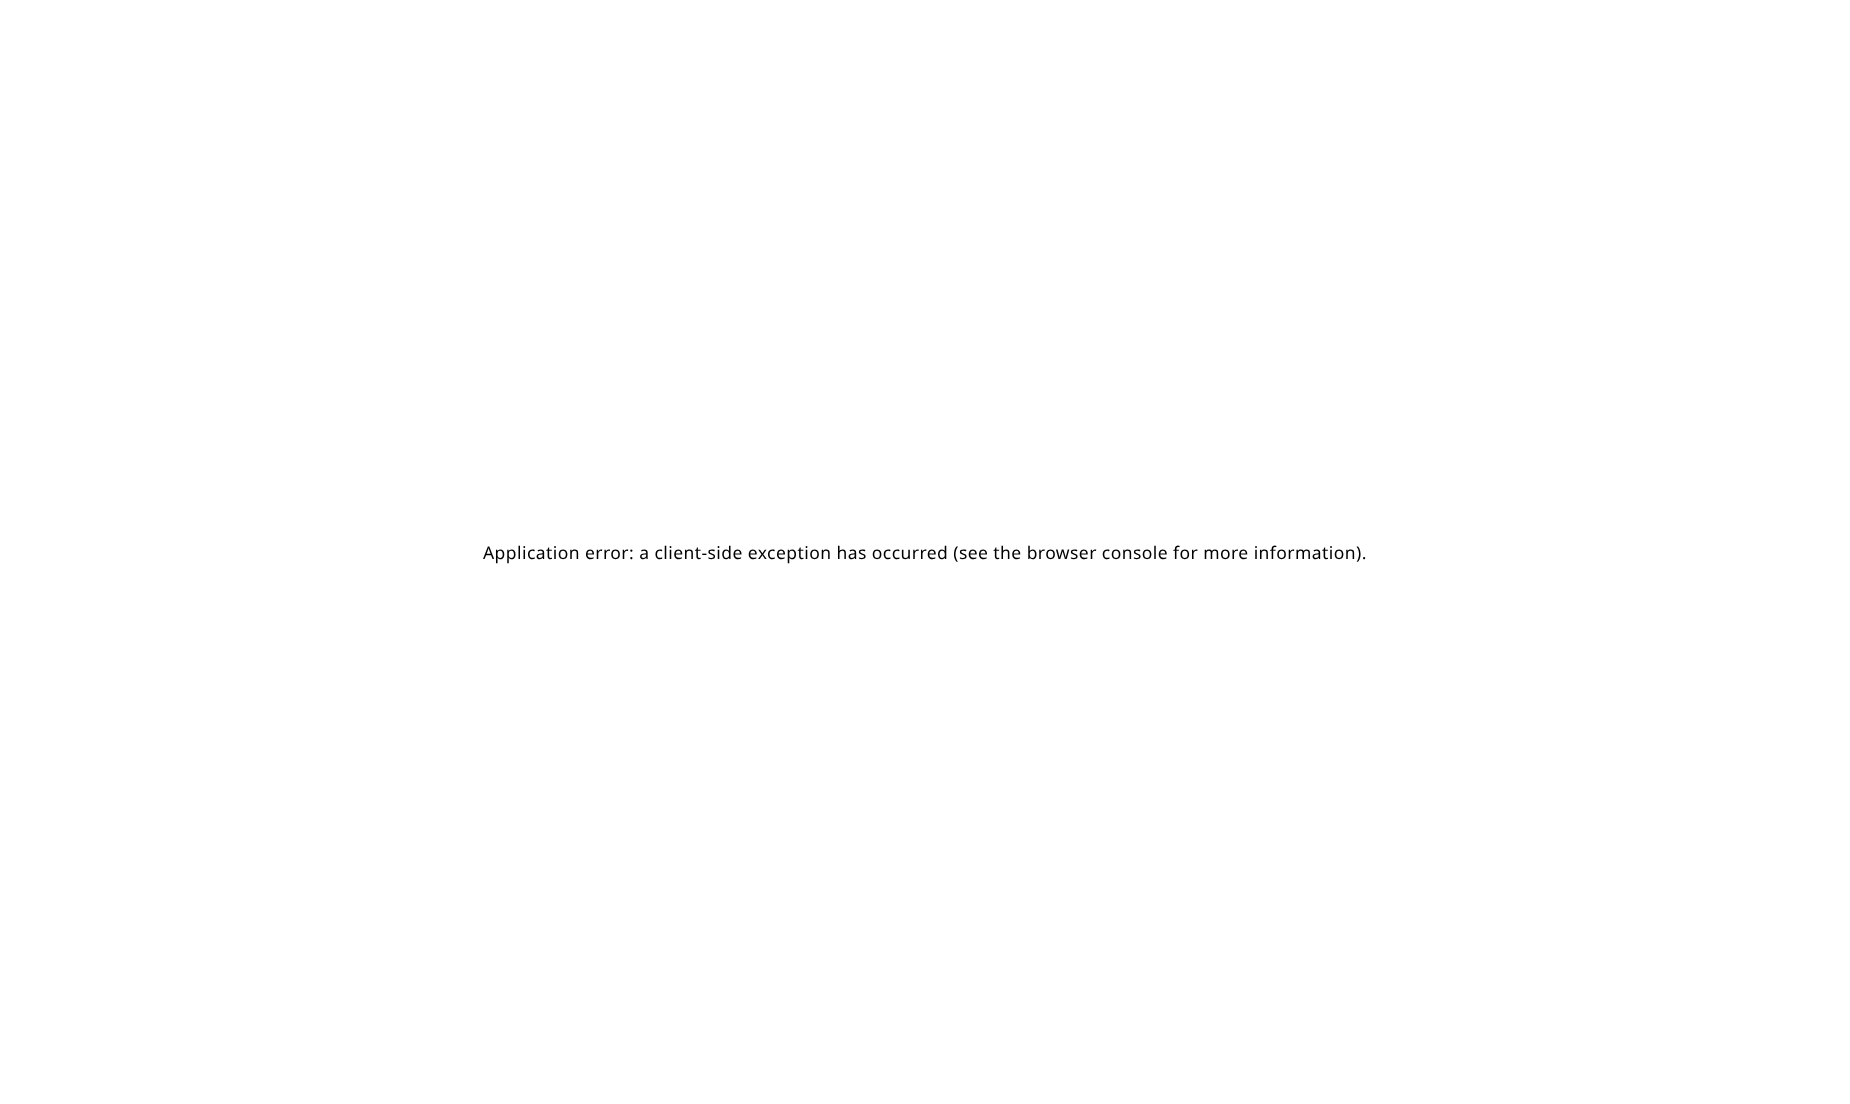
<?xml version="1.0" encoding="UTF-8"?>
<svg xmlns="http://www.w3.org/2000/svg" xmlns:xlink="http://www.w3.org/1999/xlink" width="1850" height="1104">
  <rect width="100%" height="100%" fill="#ffffff" />
  <text x="483" y="559" style="font-family: Noto Sans; font-size: 17.5px; letter-spacing: 0.44px; fill: #000000">Application error: a client-side exception has occurred (see the browser console for more information).</text>
</svg>
